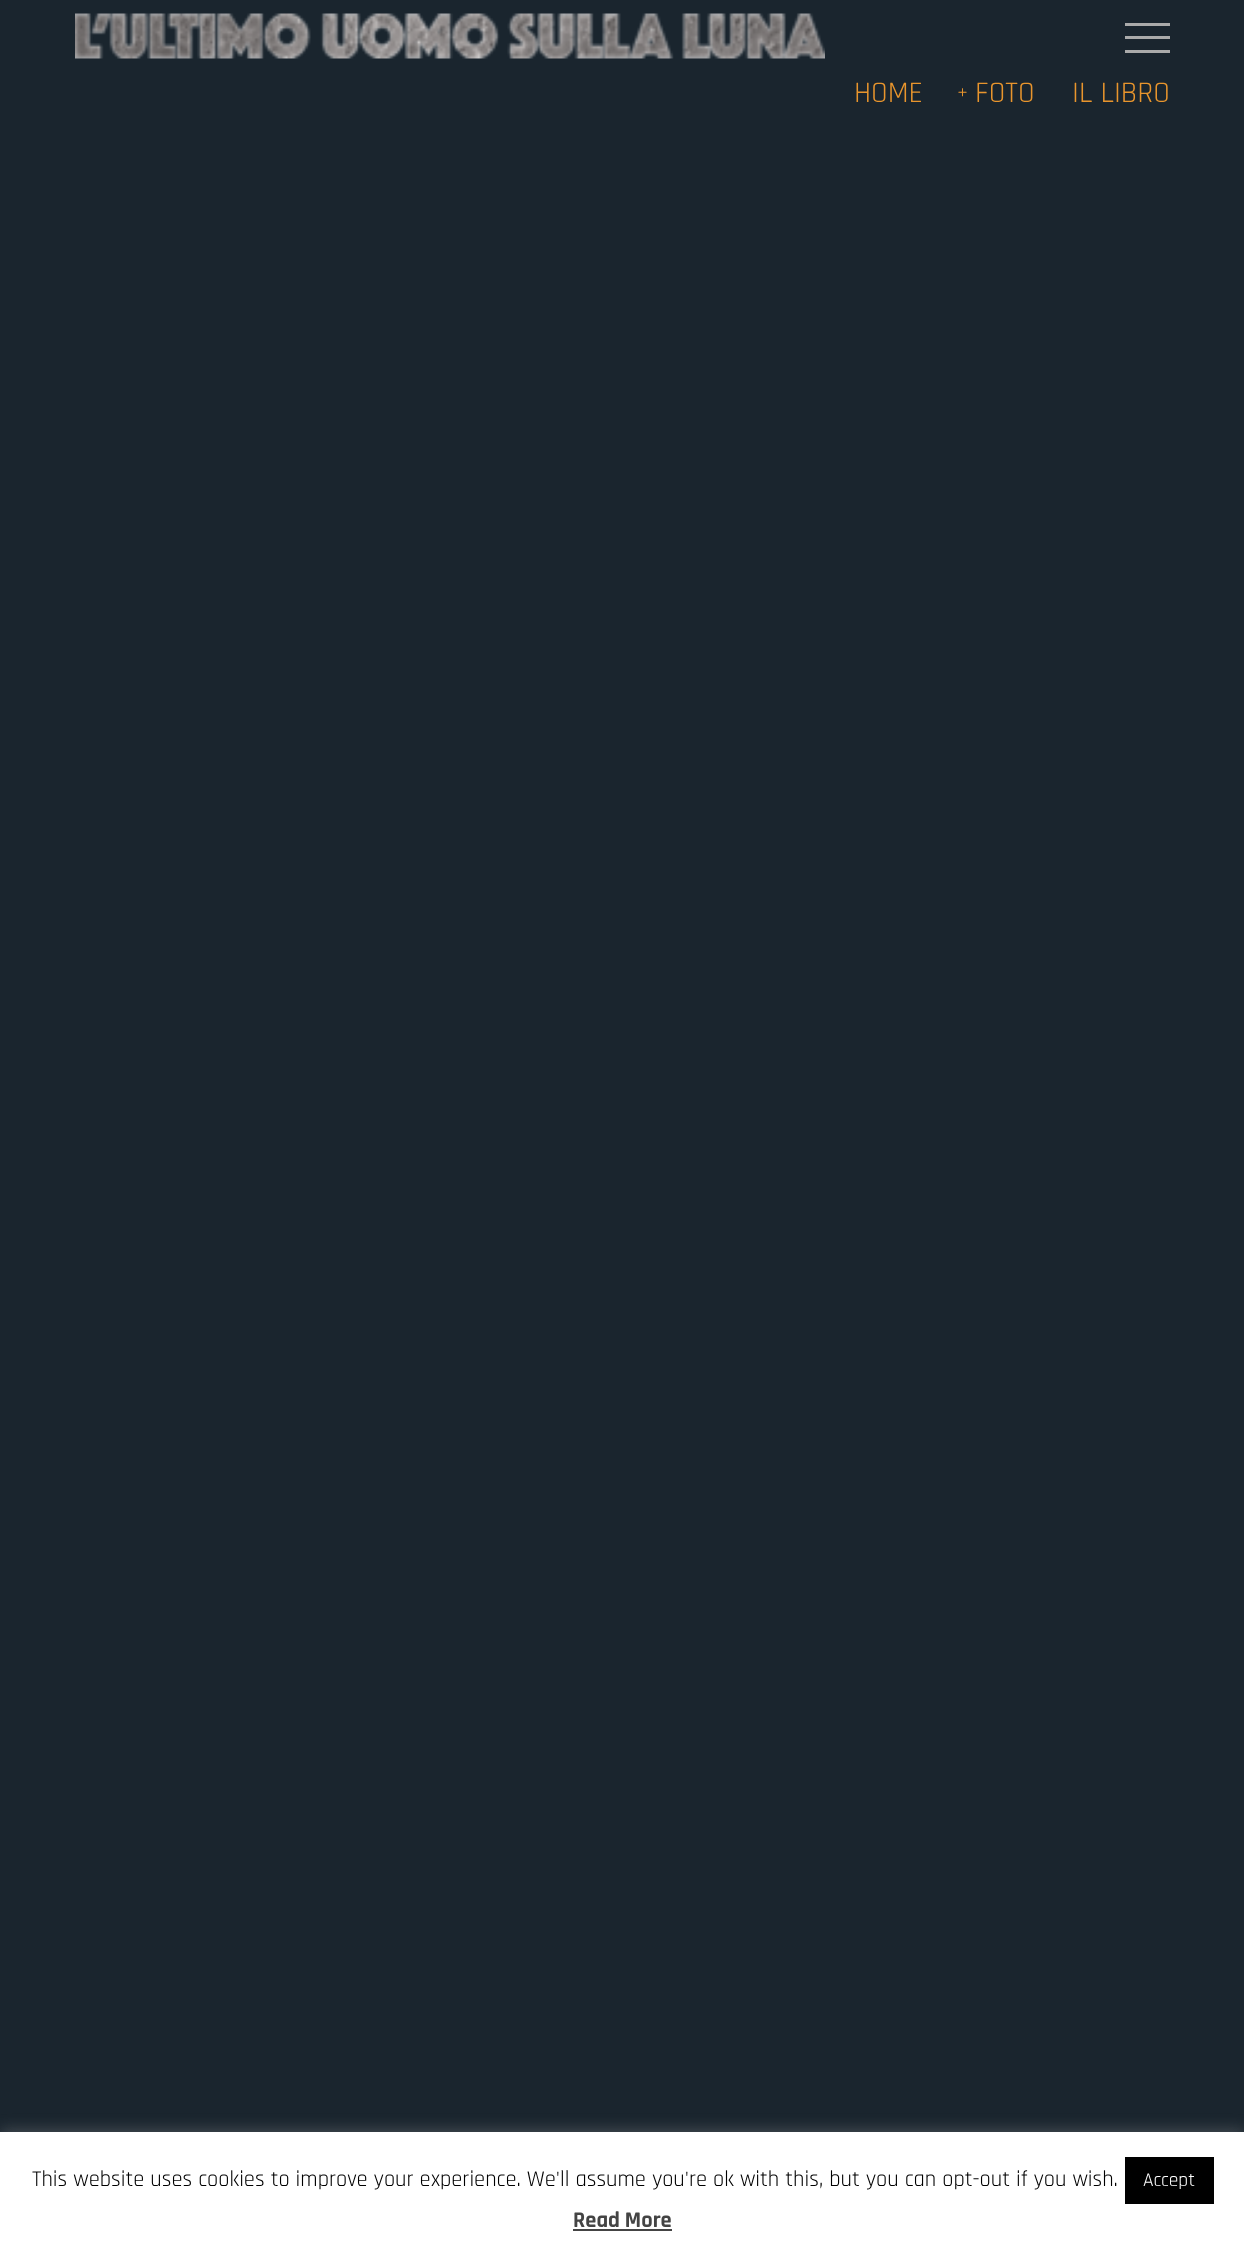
<?xml version="1.0" encoding="UTF-8"?>
<svg xmlns="http://www.w3.org/2000/svg" xmlns:xlink="http://www.w3.org/1999/xlink" width="1244" height="2254">
  <rect width="100%" height="100%" fill="#1a252e" />
  <image x="75" y="13" width="750" height="46" xlink:href="image1.png" />
  <rect x="1125" y="23" width="45" height="3" fill="#aaaaaa" />
  <rect x="1125" y="36" width="45" height="3" fill="#aaaaaa" />
  <rect x="1125" y="50" width="45" height="3" fill="#aaaaaa" />
  <rect y="2130" width="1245" height="123" fill="#acabab" fill-opacity="0.3" filter="blur(7.5px)" />
  <rect y="2132" width="1244" height="122" fill="#ffffff" />
  <rect x="1125" y="2157" width="89" height="47" fill="#000000" />
  <rect x="573" y="2229" width="99" height="2" fill="#444444" />
  <text x="854" y="102" style="font-family: Rajdhani; font-size: 30px; fill: #e8952d">HOME</text>
  <text x="957" y="99" style="font-family: Rajdhani; font-size: 21px; fill: #e8952d">+</text>
  <text x="975" y="102" style="font-family: Rajdhani; font-size: 30px; fill: #e8952d">FOTO</text>
  <text x="1072" y="102" style="font-family: Rajdhani; font-size: 30px; fill: #e8952d">IL LIBRO</text>
  <text x="32" y="2186" style="font-family: Rajdhani; font-size: 22.5px; fill: #000000">This website uses cookies to improve your experience. We'll assume you're ok with this, but you can opt-out if you wish.</text>
  <text x="1143" y="2186" style="font-family: Rajdhani; font-size: 19.5px; fill: #ffffff">Accept</text>
  <text x="573" y="2227" style="font-family: Rajdhani; font-size: 22.5px; font-weight: bold; fill: #444444">Read More</text>
</svg>
